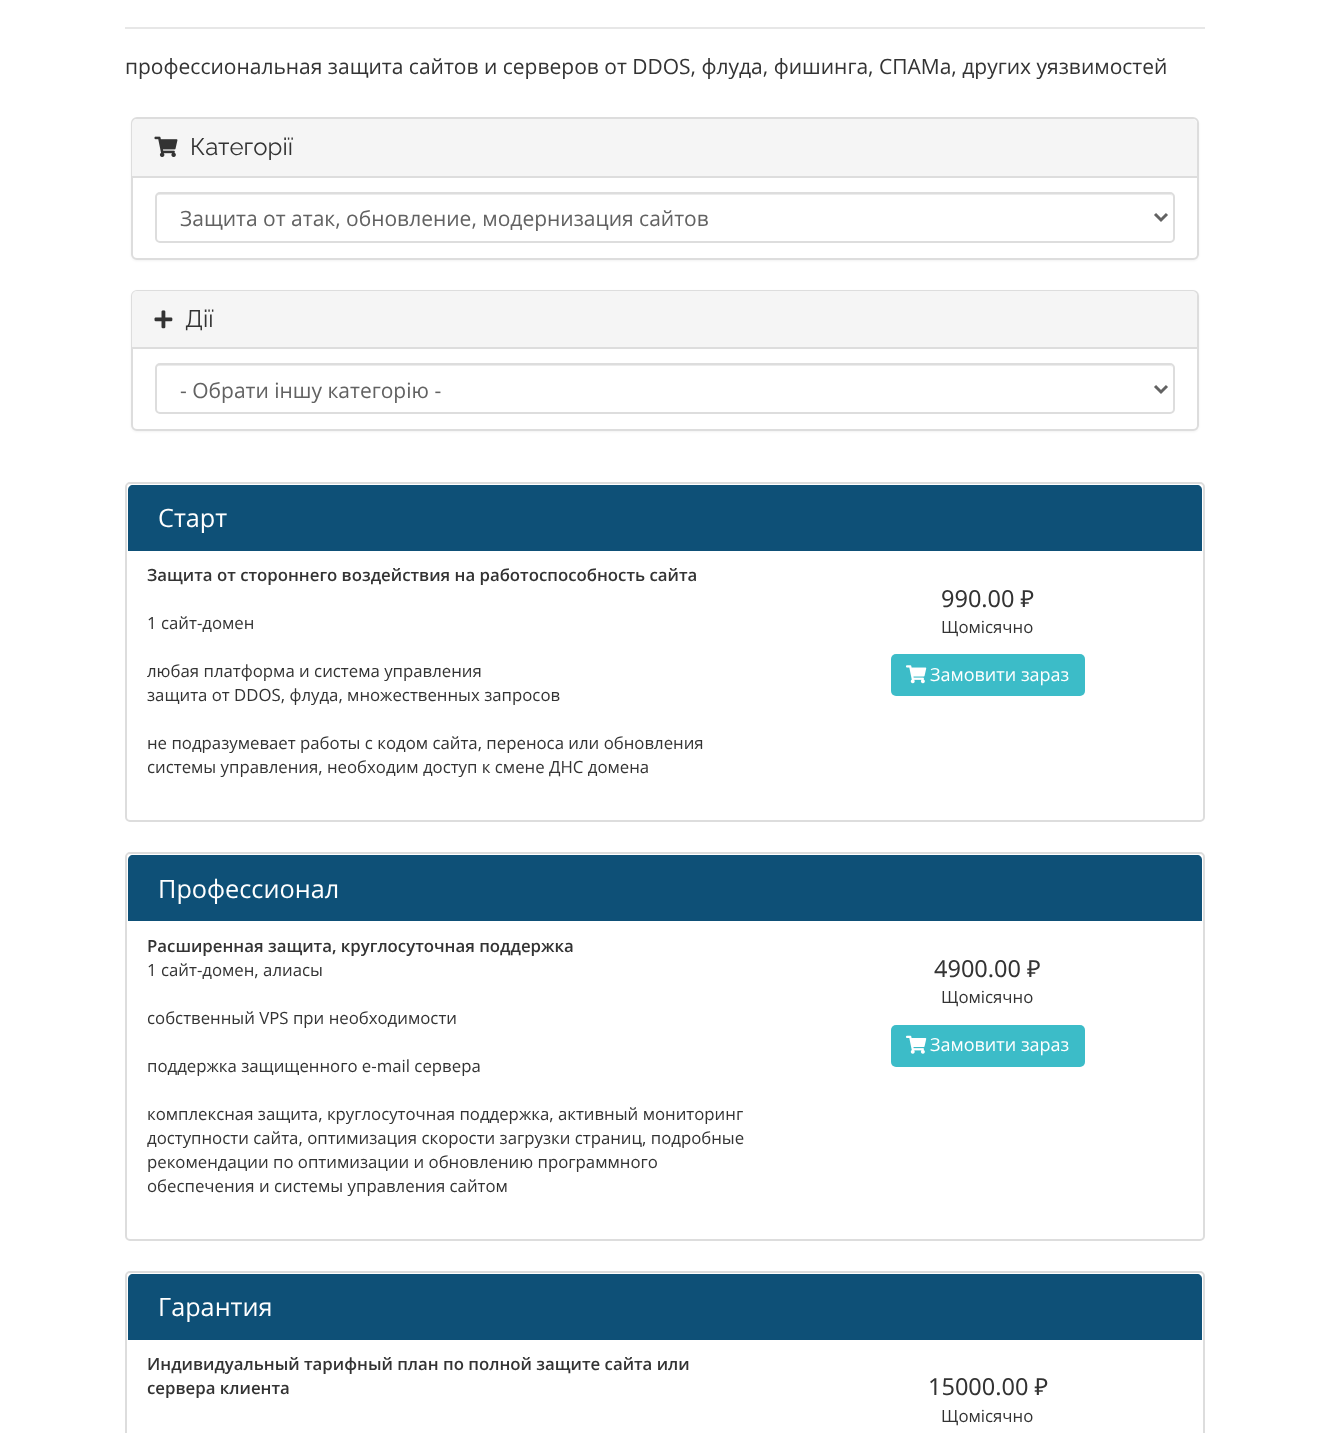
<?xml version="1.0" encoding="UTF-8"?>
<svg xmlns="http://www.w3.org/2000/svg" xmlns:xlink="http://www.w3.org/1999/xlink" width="1328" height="1433">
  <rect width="100%" height="100%" fill="#ffffff" />
  <rect x="125" y="27" width="1080" height="2" fill="#e7e7e7" />
  <rect x="131" y="119" width="1068" height="142" rx="6" fill="#000000" fill-opacity="0.05" filter="blur(1px)" />
  <rect x="132" y="118" width="1066" height="141" rx="5" fill="#ffffff" stroke="#dddddd" stroke-width="2" />
  <path d="M 137 119 h 1055 c 3 0 5 2 5 5 v 53 h -1065 v -53 c 0 -3 2 -5 5 -5 z" fill="#f5f5f5" />
  <rect x="132" y="176" width="1065" height="2" fill="#dddddd" />
  <image x="154" y="136" width="24" height="21" xlink:href="image1.png" />
  <path d="M 159 195 h 1011 c 2 0 3 1 3 3 c 0 -2 -1 -4 -3 -4 h -1011 c -2 0 -3 2 -3 4 c 0 -2 1 -3 3 -3 z" fill="#ececec" />
  <rect x="156" y="193" width="1018" height="49" rx="4" fill="none" stroke="#dddddd" stroke-width="2" />
  <path d="M 1155 214 l 6 6 l 6 -6" fill="none" stroke="#626262" stroke-width="3" />
  <rect x="131" y="291" width="1068" height="141" rx="6" fill="#000000" fill-opacity="0.05" filter="blur(1px)" />
  <rect x="132" y="291" width="1066" height="139" rx="5" fill="#ffffff" stroke="#dddddd" stroke-width="2" />
  <path d="M 137 291 h 1055 c 3 0 5 2 5 5 v 52 h -1065 v -52 c 0 -3 2 -5 5 -5 z" fill="#f5f5f5" />
  <rect x="132" y="347" width="1065" height="2" fill="#dddddd" />
  <image x="154" y="310" width="19" height="19" xlink:href="image2.png" />
  <path d="M 159 366 h 1011 c 2 0 3 1 3 3 c 0 -2 -1 -4 -3 -4 h -1011 c -2 0 -3 2 -3 4 c 0 -2 1 -3 3 -3 z" fill="#ececec" />
  <rect x="156" y="364" width="1018" height="49" rx="4" fill="none" stroke="#dddddd" stroke-width="2" />
  <path d="M 1155 386 l 6 6 l 6 -6" fill="none" stroke="#626262" stroke-width="3" />
  <rect x="126" y="483" width="1078" height="338" rx="4" fill="none" stroke="#dddddd" stroke-width="2" />
  <path d="M 133 485 h 1064 c 3 0 5 2 5 5 v 61 h -1074 v -61 c 0 -3 2 -5 5 -5 z" fill="#0e5077" />
  <rect x="891" y="654" width="194" height="42" rx="5" fill="#3cbcc8" />
  <image x="906" y="665" width="21" height="19" xlink:href="image3.png" />
  <rect x="126" y="853" width="1078" height="387" rx="4" fill="none" stroke="#dddddd" stroke-width="2" />
  <path d="M 133 855 h 1064 c 3 0 5 2 5 5 v 61 h -1074 v -61 c 0 -3 2 -5 5 -5 z" fill="#0e5077" />
  <rect x="891" y="1025" width="194" height="42" rx="5" fill="#3cbcc8" />
  <image x="906" y="1035" width="21" height="19" xlink:href="image4.png" />
  <rect x="126" y="1272" width="1078" height="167" rx="4" fill="none" stroke="#dddddd" stroke-width="2" />
  <path d="M 133 1274 h 1064 c 3 0 5 2 5 5 v 61 h -1074 v -61 c 0 -3 2 -5 5 -5 z" fill="#0e5077" />
  <text x="125" y="74" style="font-family: Open Sans; font-size: 21px; fill: #333333">профессиональная защита сайтов и серверов от DDOS, флуда, фишинга, СПАМа, других уязвимостей</text>
  <text x="190" y="155" style="font-family: Raleway; font-size: 24px; fill: #333333">Категорії</text>
  <text x="180" y="226" style="font-family: Open Sans; font-size: 21px; fill: #626262">Защита от атак, обновление, модернизация сайтов</text>
  <text x="185" y="327" style="font-family: Raleway; font-size: 24px; fill: #333333">Дії</text>
  <text x="180" y="398" style="font-family: Open Sans; font-size: 21px; fill: #626262">- Обрати іншу категорію -</text>
  <text x="158" y="527" style="font-family: Open Sans; font-size: 25.25px; fill: #ffffff">Старт</text>
  <text x="147" y="581" style="font-family: Open Sans; font-size: 16.8px; font-weight: 600; fill: #333333">Защита от стороннего воздействия на работоспособность сайта</text>
  <text x="147" y="629" style="font-family: Open Sans; font-size: 16.8px; fill: #333333">1 сайт-домен</text>
  <text x="147" y="677" style="font-family: Open Sans; font-size: 16.8px; fill: #333333">любая платформа и система управления</text>
  <text x="147" y="701" style="font-family: Open Sans; font-size: 16.8px; fill: #333333">защита от DDOS, флуда, множественных запросов</text>
  <text x="147" y="749" style="font-family: Open Sans; font-size: 16.8px; fill: #333333">не подразумевает работы с кодом сайта, переноса или обновления</text>
  <text x="147" y="773" style="font-family: Open Sans; font-size: 16.8px; fill: #333333">системы управления, необходим доступ к смене ДНС домена</text>
  <text x="941" y="607" style="font-family: Noto Sans; font-size: 23.5px; fill: #333333">990.00 ₽</text>
  <text x="941" y="633" style="font-family: Open Sans; font-size: 16.8px; fill: #333333">Щомісячно</text>
  <text x="930" y="681" style="font-family: Open Sans; font-size: 18px; fill: #ffffff">Замовити зараз</text>
  <text x="158" y="898" style="font-family: Open Sans; font-size: 25.25px; fill: #ffffff">Профессионал</text>
  <text x="147" y="952" style="font-family: Open Sans; font-size: 16.8px; font-weight: 600; fill: #333333">Расширенная защита, круглосуточная поддержка</text>
  <text x="147" y="976" style="font-family: Open Sans; font-size: 16.8px; fill: #333333">1 сайт-домен, алиасы</text>
  <text x="147" y="1024" style="font-family: Open Sans; font-size: 16.8px; fill: #333333">собственный VPS при необходимости</text>
  <text x="147" y="1072" style="font-family: Open Sans; font-size: 16.8px; fill: #333333">поддержка защищенного e-mail сервера</text>
  <text x="147" y="1120" style="font-family: Open Sans; font-size: 16.8px; fill: #333333">комплексная защита, круглосуточная поддержка, активный мониторинг</text>
  <text x="147" y="1144" style="font-family: Open Sans; font-size: 16.8px; fill: #333333">доступности сайта, оптимизация скорости загрузки страниц, подробные</text>
  <text x="147" y="1168" style="font-family: Open Sans; font-size: 16.8px; fill: #333333">рекомендации по оптимизации и обновлению программного</text>
  <text x="147" y="1192" style="font-family: Open Sans; font-size: 16.8px; fill: #333333">обеспечения и системы управления сайтом</text>
  <text x="934" y="977" style="font-family: Noto Sans; font-size: 23.5px; fill: #333333">4900.00 ₽</text>
  <text x="941" y="1003" style="font-family: Open Sans; font-size: 16.8px; fill: #333333">Щомісячно</text>
  <text x="930" y="1051" style="font-family: Open Sans; font-size: 18px; fill: #ffffff">Замовити зараз</text>
  <text x="158" y="1316" style="font-family: Open Sans; font-size: 25.25px; fill: #ffffff">Гарантия</text>
  <text x="147" y="1370" style="font-family: Open Sans; font-size: 16.8px; font-weight: 600; fill: #333333">Индивидуальный тарифный план по полной защите сайта или</text>
  <text x="147" y="1394" style="font-family: Open Sans; font-size: 16.8px; font-weight: 600; fill: #333333">сервера клиента</text>
  <text x="928" y="1395" style="font-family: Noto Sans; font-size: 23.5px; fill: #333333">15000.00 ₽</text>
  <text x="941" y="1422" style="font-family: Open Sans; font-size: 16.8px; fill: #333333">Щомісячно</text>
</svg>
